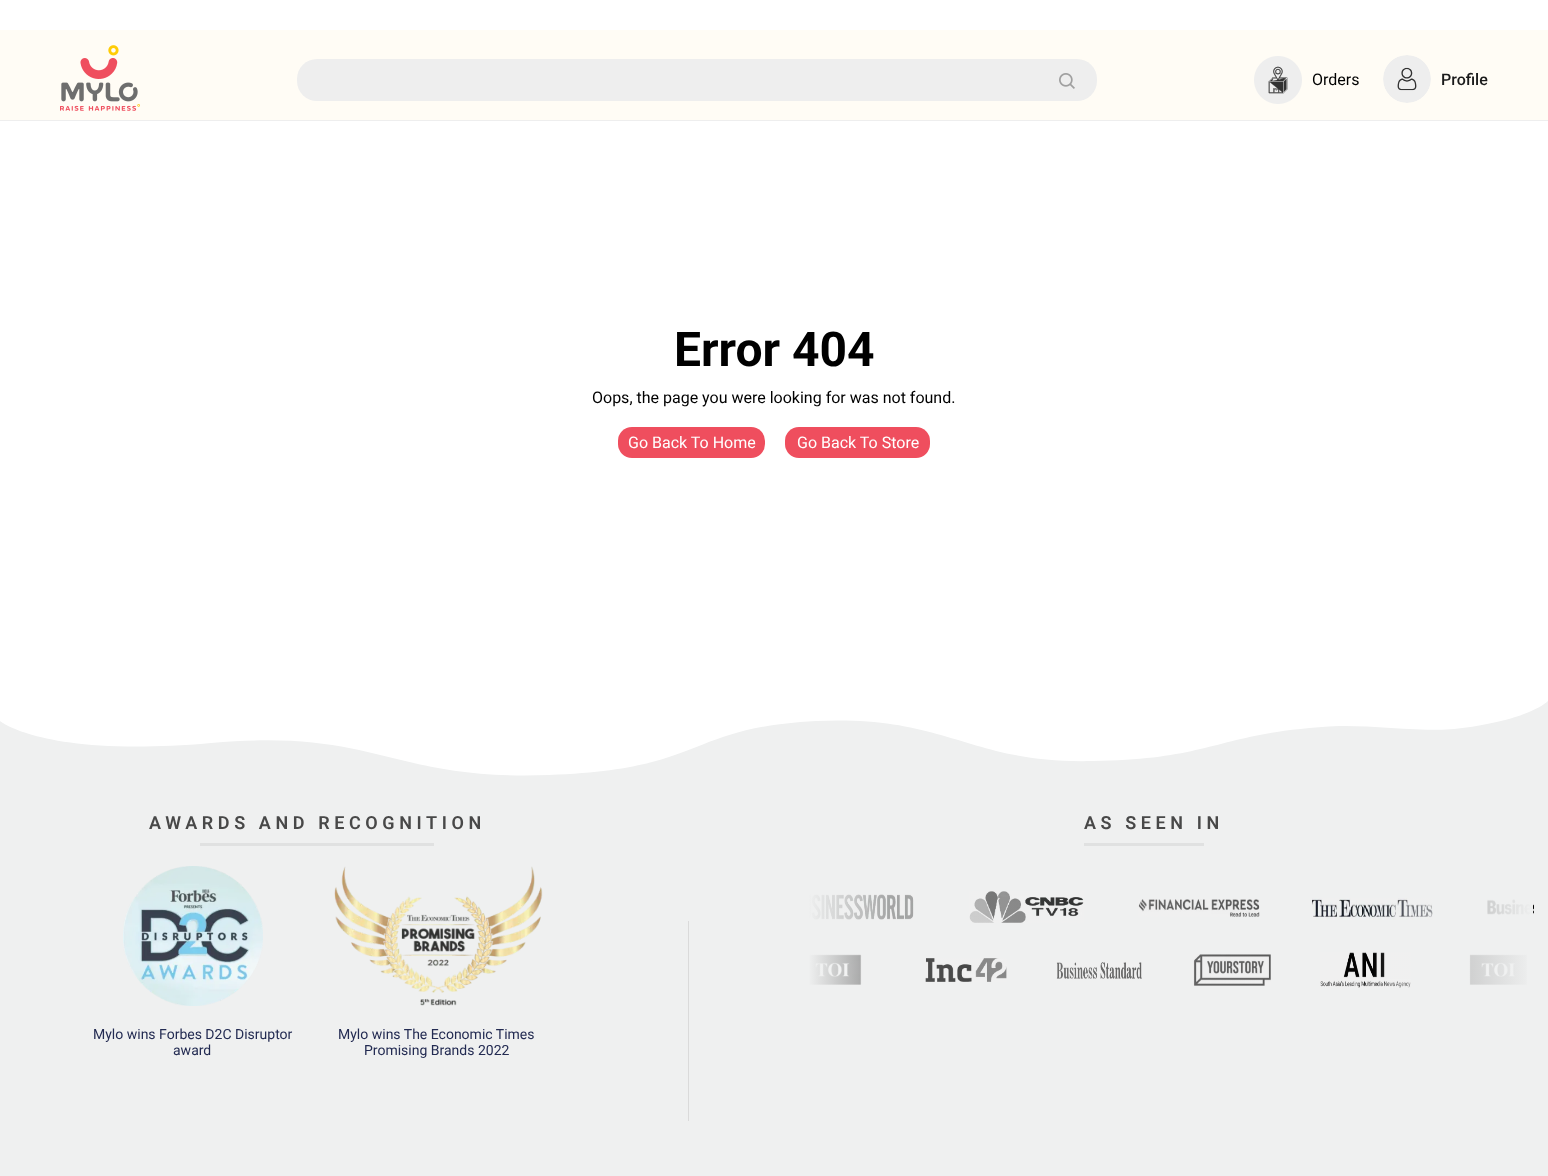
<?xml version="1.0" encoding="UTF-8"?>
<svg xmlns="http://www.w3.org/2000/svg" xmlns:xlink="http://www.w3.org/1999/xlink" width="1548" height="1176">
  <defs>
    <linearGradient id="g1" gradientUnits="userSpaceOnUse" x1="728" y1="976" x2="1533" y2="976"><stop offset="0.1" stop-color="#eff0f0" /><stop offset="0.2" stop-color="#eff0f0" stop-opacity="0.33" /><stop offset="0.8" stop-color="#eff0f0" stop-opacity="0" /><stop offset="0.9" stop-color="#eff0f0" stop-opacity="0.75" /><stop offset="1" stop-color="#eff0f0" /></linearGradient>
  </defs>
  <rect width="100%" height="100%" fill="#ffffff" />
  <rect y="30" width="1548" height="90" fill="#fffcf5" />
  <image x="60" y="45" width="80" height="66" xlink:href="image1.png" />
  <rect x="297" y="59" width="800" height="42" rx="20" fill="#eeeeee" />
  <image x="1059" y="73" width="16" height="16" xlink:href="image2.png" />
  <image x="1254" y="56" width="48" height="48" xlink:href="image3.png" />
  <image x="1383" y="55" width="48" height="48" xlink:href="image4.png" />
  <rect y="120" width="1548" height="1" fill="#eeeeee" />
  <rect x="618" y="427" width="147" height="31" rx="14" fill="#ef4e5e" />
  <rect x="785" y="427" width="145" height="31" rx="14" fill="#ef4e5e" />
  <rect y="701" width="1548" height="475" fill="#eff0f0" />
  <path d="M 1548 695 h -1548 v 26 c 0 0 44 37 211 22 c 167 -15 179 38 338 32 c 160 -6 135 -47 267 -54 c 133 -6 152 43 277 40 c 125 -2 123 -29 246 -35 c 31 -1 89 6 115 3 c 75 -8 94 -28 94 -28 z" fill="#ffffff" />
  <rect x="200" y="843" width="234" height="3" fill="#e0e1e1" />
  <image x="123" y="866" width="140" height="140" xlink:href="image5.png" />
  <image x="334" y="866" width="209" height="140" xlink:href="image6.png" />
  <rect x="1084" y="843" width="120" height="3" fill="#e0e1e1" />
  <image x="809" y="894" width="105" height="26" xlink:href="image7.png" />
  <image x="969" y="891" width="115" height="32" xlink:href="image8.png" />
  <image x="1138" y="899" width="122" height="18" xlink:href="image9.png" />
  <image x="1312" y="898" width="121" height="22" xlink:href="image10.png" />
  <image x="1487" y="899" width="47" height="16" xlink:href="image11.png" />
  <image x="809" y="954" width="53" height="31" xlink:href="image12.png" />
  <image x="925" y="958" width="82" height="24" xlink:href="image13.png" />
  <image x="1056" y="962" width="86" height="17" xlink:href="image14.png" />
  <image x="1193" y="954" width="78" height="32" xlink:href="image15.png" />
  <image x="1320" y="952" width="91" height="36" xlink:href="image16.png" />
  <image x="1469" y="954" width="59" height="31" xlink:href="image17.png" />
  <rect x="809" y="891" width="724" height="97" fill="url(#g1)" />
  <rect x="688" y="921" width="1" height="200" fill="#dadada" />
  <text x="1312" y="85" style="font-family: Roboto; font-size: 16px; fill: #000000">Orders</text>
  <text x="1441" y="85" style="font-family: Roboto; font-size: 16px; font-weight: 500; fill: #1a1a1a">Profile</text>
  <text x="674" y="366" style="font-family: Roboto; font-size: 48px; font-weight: bold; fill: #000000">Error 404</text>
  <text x="592" y="403" style="font-family: Roboto; font-size: 16px; fill: #000000">Oops, the page you were looking for was not found.</text>
  <text x="628" y="448" style="font-family: Roboto; font-size: 16px; fill: #ffffff">Go Back To Home</text>
  <text x="797" y="448" style="font-family: Roboto; font-size: 16px; fill: #ffffff">Go Back To Store</text>
  <text x="149" y="829" style="font-family: Roboto; font-size: 18px; font-weight: 600; letter-spacing: 4.6px; fill: #484848">AWARDS AND RECOGNITION</text>
  <text x="93" y="1039" style="font-family: Roboto; font-size: 14px; fill: #232b52">Mylo wins Forbes D2C Disruptor</text>
  <text x="173" y="1055" style="font-family: Roboto; font-size: 14px; fill: #232b52">award</text>
  <text x="338" y="1039" style="font-family: Roboto; font-size: 14px; fill: #232b52">Mylo wins The Economic Times</text>
  <text x="364" y="1055" style="font-family: Roboto; font-size: 14px; fill: #232b52">Promising Brands 2022</text>
  <text x="1084" y="829" style="font-family: Roboto; font-size: 18px; font-weight: 600; letter-spacing: 4.6px; fill: #484848">AS SEEN IN</text>
</svg>
